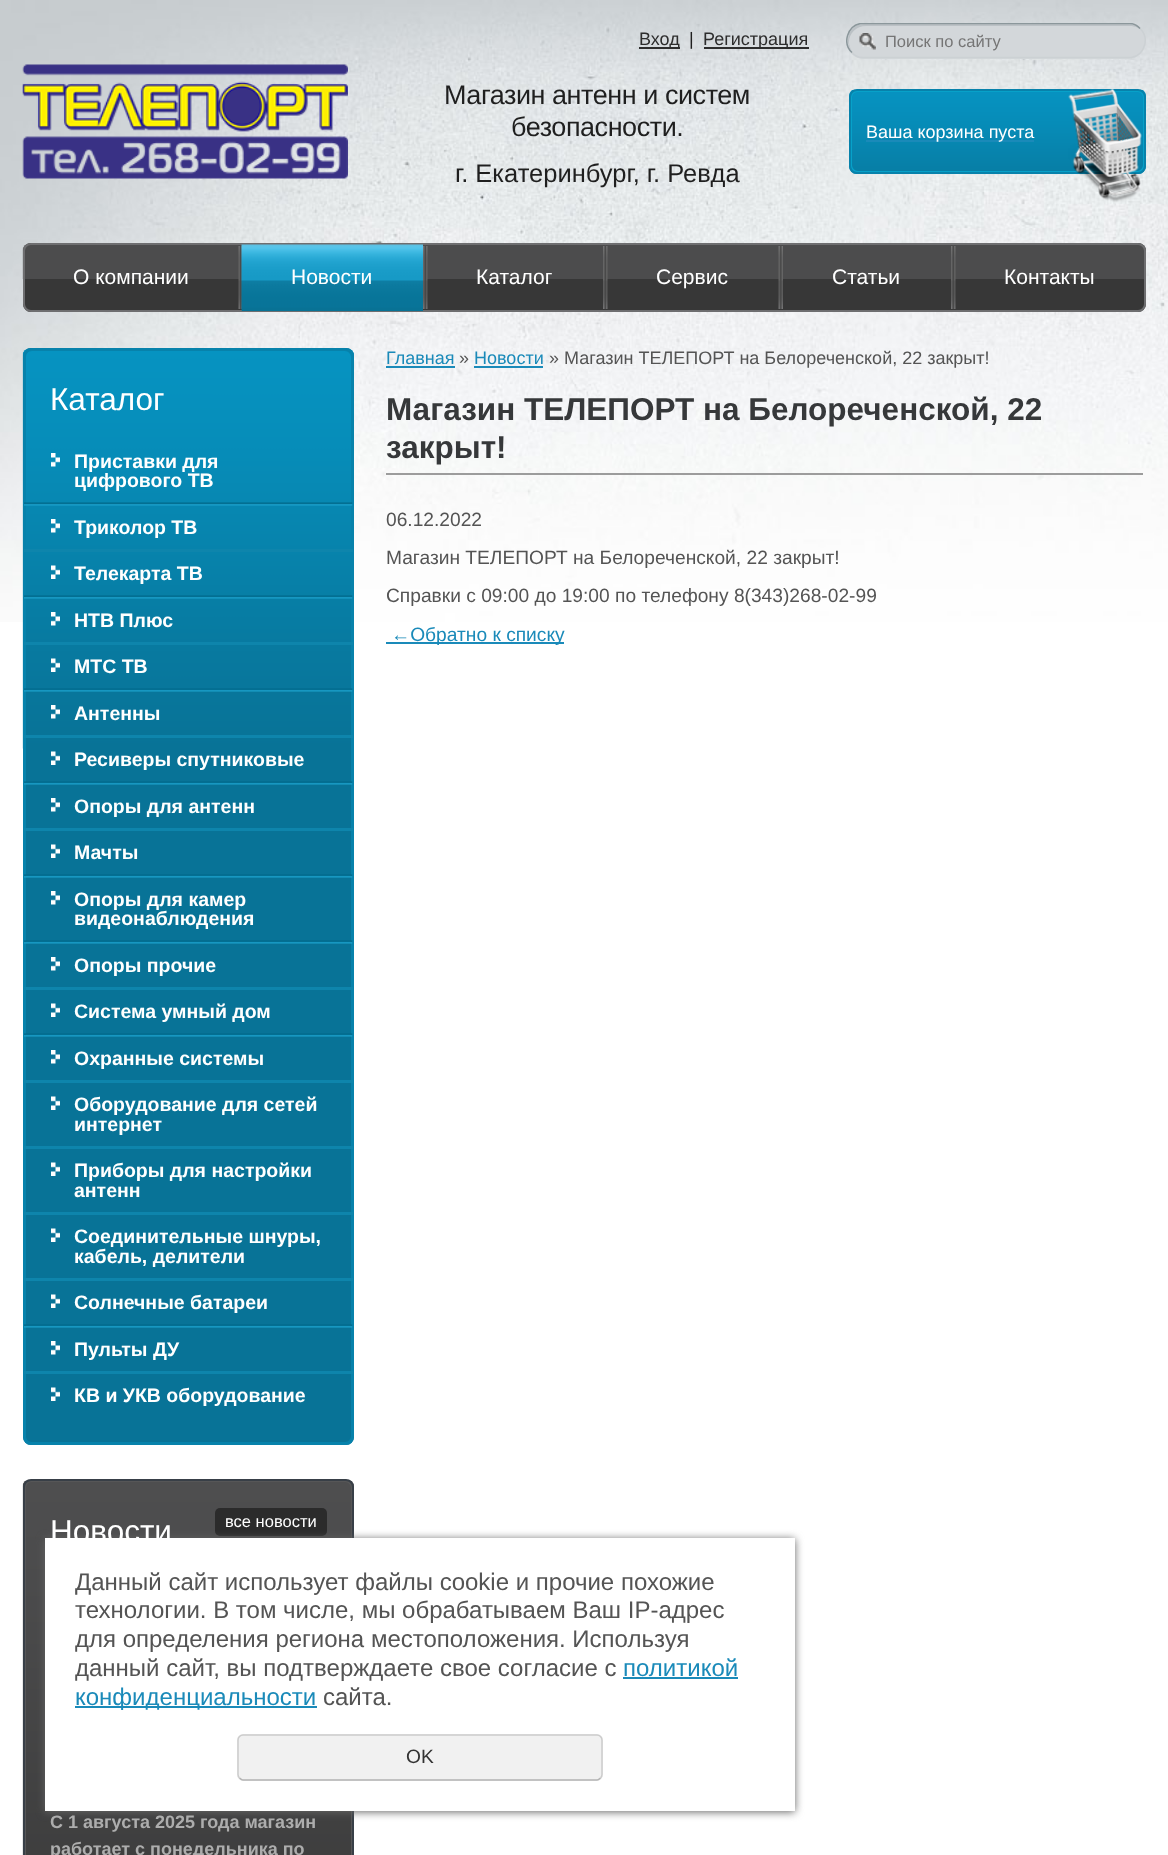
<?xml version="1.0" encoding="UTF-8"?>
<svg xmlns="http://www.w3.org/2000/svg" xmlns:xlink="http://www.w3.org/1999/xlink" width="1168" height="1855">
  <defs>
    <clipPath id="clip1"><rect x="846" y="23" width="300" height="198" /></clipPath>
  </defs>
  <rect width="100%" height="100%" fill="#ffffff" />
  <image x="0" y="0" width="1168" height="622" xlink:href="image1.png" />
  <image x="22" y="64" width="326" height="115" xlink:href="image2.png" />
  <rect x="639" y="47" width="41" height="2" fill="#2d2d2d" />
  <rect x="704" y="47" width="105" height="2" fill="#2d2d2d" />
  <rect x="846" y="23" width="300" height="36" rx="18" fill="#d3d7da" />
  <path d="M 866 26 h 264 c 5 0 10 2 13 6 c -3 -5 -8 -8 -15 -8 h -264 c -9 0 -16 7 -16 16 c 0 4 1 8 4 11 c -8 -11 1 -25 14 -25 z" fill="#bbc1c5" />
  <path d="M 1140 28.5 c 10 9.5 4.5 26.5 -8.5 29 h -269 c -4 0 -8 -2 -10.5 -5" fill="none" stroke="#ccd1d4" stroke-width="1.5" />
  <g clip-path="url(#clip1)">
    <path d="M 852 52.5 c -10 -9.5 -4.5 -26.5 8.5 -29 h 269 c 4 0 8 2 10.5 5" fill="none" stroke="#8b979b" stroke-width="1.5" />
  </g>
  <image x="859" y="33" width="17" height="17" xlink:href="image3.png" />
  <image x="849" y="90" width="297" height="84" xlink:href="image4.png" />
  <path d="M 852 92 c 0 1 -1 3 -1 4 v 71 c 0 3 3 6 6 6 h 282 c 3 0 5 -2 6 -5 c -1 2 -3 3 -5 3 h -282 c -3 0 -6 -3 -6 -6 z" fill="#07a1c9" />
  <path d="M 855 92 h 282 c 3 0 6 2 6 6 v 70 c 0 2 -1 4 -3 5 c 3 -1 5 -3 5 -6 v -71 c 0 -3 -3 -6 -6 -6 h -282 c -2 0 -4 1 -5 3 z" fill="#07a1c9" />
  <path d="M 852 170 c 1 2 3 3 5 3 h 282 c 3 0 6 -3 6 -6 v -71 c 0 -2 -1 -4 -3 -5 c 1 1 1 2 1 3 v 71 c 0 3 -3 6 -6 6 h -282 c -1 0 -2 0 -3 -1 z" fill="#07a1c9" />
  <path d="M 858 92 h 282 c 2 0 4 1 5 2 c -1 -2 -3 -4 -6 -4 h -282 c -3 0 -6 3 -6 6 v 71 c 0 2 1 4 3 5 c -1 -1 -2 -3 -2 -4 v -70 c 0 -4 3 -6 6 -6 z" fill="#07a1c9" />
  <rect x="850" y="90" width="295" height="83" rx="7" fill="none" stroke="#0782ab" stroke-width="2" />
  <rect x="866" y="140" width="168" height="2" fill="#1a8ab9" />
  <image x="1068" y="89" width="74" height="113" xlink:href="image5.png" />
  <rect x="23" y="243" width="1123" height="69" rx="8" fill="#373737" />
  <image x="22" y="244" width="1124" height="35" xlink:href="image6.png" />
  <rect x="24" y="244" width="1121" height="67" rx="7" fill="none" stroke="#6e6e70" stroke-width="2" />
  <image x="238" y="246" width="4" height="63" xlink:href="image7.png" />
  <rect x="242" y="310" width="181" height="1" fill="#087295" />
  <image x="241" y="244" width="182" height="67" xlink:href="image8.png" />
  <image x="423" y="246" width="5" height="63" xlink:href="image9.png" />
  <image x="603" y="246" width="5" height="63" xlink:href="image9.png" />
  <image x="778" y="246" width="5" height="63" xlink:href="image10.png" />
  <image x="951" y="246" width="5" height="63" xlink:href="image11.png" />
  <rect x="23" y="348" width="331" height="1097" rx="8" fill="#087397" />
  <image x="22" y="349" width="332" height="400" xlink:href="image12.png" />
  <path d="M 28 351 h 317 c 3 0 6 3 6 6 v 1081 c 0 2 -1 4 -2 5 c 2 -1 4 -3 4 -6 v -1081 c 0 -3 -3 -6 -6 -6 h -317 c -1 0 -3 1 -4 1 z" fill="#0782ab" />
  <path d="M 27 351 c -2 1 -3 3 -3 5 v 1081 c 0 3 3 6 6 6 h 317 c 2 0 4 -1 5 -3 c -1 1 -3 2 -4 2 h -316 c -4 0 -6 -3 -6 -6 v -1082 z" fill="#0782ab" />
  <path d="M 26 1442 c 1 0 3 1 4 1 h 317 c 3 0 6 -3 6 -6 v -1081 c 0 -2 -1 -4 -3 -5 c 1 1 1 2 1 3 v 1082 c 0 3 -3 6 -6 6 z" fill="#0782ab" />
  <path d="M 32 351 h 316 c 1 0 3 1 4 2 c -1 -2 -3 -3 -5 -3 h -317 c -3 0 -6 3 -6 6 v 1081 c 0 2 1 4 3 5 c -1 -1 -1 -2 -1 -4 v -1081 c 0 -3 2 -6 6 -6 z" fill="#0782ab" />
  <rect x="24" y="349" width="329" height="1095" rx="7" fill="none" stroke="#0782ab" stroke-width="2" />
  <image x="24" y="502" width="329" height="4" xlink:href="image13.png" />
  <image x="51" y="453" width="9" height="14" xlink:href="image14.png" />
  <rect x="24" y="549" width="329" height="3" fill="#0e85ac" />
  <image x="51" y="519" width="9" height="14" xlink:href="image15.png" />
  <image x="24" y="595" width="329" height="4" xlink:href="image16.png" />
  <image x="51" y="565" width="9" height="14" xlink:href="image17.png" />
  <rect x="24" y="642" width="329" height="3" fill="#0e85ac" />
  <image x="51" y="612" width="9" height="14" xlink:href="image18.png" />
  <image x="24" y="688" width="329" height="4" xlink:href="image19.png" />
  <image x="51" y="658" width="9" height="14" xlink:href="image20.png" />
  <rect x="24" y="735" width="329" height="3" fill="#0e85ac" />
  <image x="51" y="705" width="9" height="14" xlink:href="image21.png" />
  <image x="24" y="781" width="329" height="4" xlink:href="image22.png" />
  <image x="51" y="751" width="9" height="14" xlink:href="image23.png" />
  <rect x="24" y="828" width="329" height="3" fill="#0e85ac" />
  <image x="51" y="798" width="9" height="14" xlink:href="image24.png" />
  <image x="24" y="874" width="329" height="4" xlink:href="image22.png" />
  <image x="51" y="844" width="9" height="14" xlink:href="image23.png" />
  <image x="24" y="940" width="329" height="4" xlink:href="image22.png" />
  <image x="51" y="891" width="9" height="14" xlink:href="image24.png" />
  <rect x="24" y="987" width="329" height="3" fill="#0e85ac" />
  <image x="51" y="957" width="9" height="14" xlink:href="image24.png" />
  <image x="24" y="1033" width="329" height="4" xlink:href="image22.png" />
  <image x="51" y="1003" width="9" height="14" xlink:href="image23.png" />
  <rect x="24" y="1080" width="329" height="3" fill="#0e85ac" />
  <image x="51" y="1050" width="9" height="14" xlink:href="image24.png" />
  <rect x="24" y="1146" width="329" height="3" fill="#0e85ac" />
  <image x="51" y="1096" width="9" height="14" xlink:href="image23.png" />
  <rect x="24" y="1212" width="329" height="3" fill="#0e85ac" />
  <image x="51" y="1162" width="9" height="14" xlink:href="image23.png" />
  <rect x="24" y="1278" width="329" height="3" fill="#0e85ac" />
  <image x="51" y="1228" width="9" height="14" xlink:href="image23.png" />
  <image x="24" y="1324" width="329" height="4" xlink:href="image22.png" />
  <image x="51" y="1294" width="9" height="14" xlink:href="image23.png" />
  <rect x="24" y="1371" width="329" height="3" fill="#0e85ac" />
  <image x="51" y="1341" width="9" height="14" xlink:href="image24.png" />
  <image x="51" y="1387" width="9" height="14" xlink:href="image23.png" />
  <image x="22" y="1480" width="332" height="375" xlink:href="image25.png" />
  <path d="M 28 1482 h 317 c 3 0 6 3 6 6 v 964 c 0 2 -1 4 -2 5 c 2 -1 4 -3 4 -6 v -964 c 0 -3 -3 -6 -6 -6 h -317 c -1 0 -3 1 -4 1 z" fill="#565657" />
  <path d="M 32 1482 h 316 c 1 0 3 1 4 2 c -1 -2 -3 -3 -5 -3 h -317 c -3 0 -6 3 -6 6 v 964 c 0 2 1 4 3 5 c -1 -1 -1 -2 -1 -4 v -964 c 0 -3 2 -6 6 -6 z" fill="#565657" />
  <rect x="24" y="1480" width="329" height="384" rx="7" fill="none" stroke="#383f47" stroke-width="2" />
  <rect x="215" y="1508" width="112" height="28" rx="5" fill="#2b2b2b" />
  <rect x="386" y="366" width="69" height="2" fill="#1a8ab9" />
  <rect x="474" y="366" width="69" height="2" fill="#1a8ab9" />
  <rect x="386" y="473" width="757" height="2" fill="#9c9c9c" />
  <rect x="386" y="642" width="178" height="2" fill="#1a8ab9" />
  <rect x="45" y="1539" width="750" height="273" fill="#666666" filter="blur(4px)" />
  <rect x="45" y="1538" width="750" height="273" fill="#ffffff" />
  <rect x="623" y="1677" width="115" height="2" fill="#1a8ab9" />
  <rect x="75" y="1706" width="242" height="2" fill="#1a8ab9" />
  <rect x="237" y="1734" width="366" height="47" rx="6" fill="#f1f1f1" />
  <path d="M 600.5 1778 c -1 1 -2 2 -3.5 2 h -354 c -1.5 0 -2.5 -1 -3.5 -2" fill="none" stroke="#b3b3b3" stroke-width="1.5" />
  <path d="M 239.5 1778 c -1 -1 -1.5 -2 -1.5 -3.5 v -34.5 c 0 -1.5 0.5 -2.5 1.5 -3.5 c 1 -1 2 -1.5 3.5 -1.5 h 354 c 1.5 0 2.5 0.5 3.5 1.5 c 1 1 1.5 2 1.5 3.5 v 34.5 c 0 1.5 -0.5 2.5 -1.5 3.5" fill="none" stroke="#cccccc" stroke-width="1.5" />
  <text x="639" y="45" style="font-family: Liberation Sans; font-size: 18px; fill: #2d2d2d">Вход</text>
  <text x="689" y="45" style="font-family: Liberation Sans; font-size: 18px; fill: #1f1f1f">|</text>
  <text x="703" y="45" style="font-family: Liberation Sans; font-size: 18px; fill: #2d2d2d">Регистрация</text>
  <text x="444" y="104" style="font-family: Liberation Sans; font-size: 27px; letter-spacing: -0.45px; fill: #1f1f1f">Магазин антенн и систем</text>
  <text x="511" y="136" style="font-family: Liberation Sans; font-size: 27px; letter-spacing: -0.45px; fill: #1f1f1f">безопасности.</text>
  <text x="455" y="182" style="font-family: Liberation Sans; font-size: 25.5px; fill: #1f1f1f">г. Екатеринбург, г. Ревда</text>
  <text x="885" y="47" style="font-family: Liberation Sans; font-size: 16.5px; fill: #757575">Поиск по сайту</text>
  <text x="866" y="138" style="font-family: Liberation Sans; font-size: 18px; fill: #ffffff">Ваша корзина пуста</text>
  <text x="73" y="284" style="font-family: Liberation Sans; font-size: 21px; fill: #ffffff">О компании</text>
  <text x="291" y="284" style="font-family: Liberation Sans; font-size: 21px; fill: #ffffff">Новости</text>
  <text x="476" y="284" style="font-family: Liberation Sans; font-size: 21px; fill: #ffffff">Каталог</text>
  <text x="656" y="284" style="font-family: Liberation Sans; font-size: 21px; fill: #ffffff">Сервис</text>
  <text x="832" y="284" style="font-family: Liberation Sans; font-size: 21px; fill: #ffffff">Статьи</text>
  <text x="1004" y="284" style="font-family: Liberation Sans; font-size: 21px; fill: #ffffff">Контакты</text>
  <text x="50" y="410" style="font-family: Liberation Sans; font-size: 31.5px; fill: #ffffff">Каталог</text>
  <text x="74" y="468" style="font-family: Liberation Sans; font-size: 19.5px; font-weight: bold; fill: #ffffff">Приставки для</text>
  <text x="74" y="487" style="font-family: Liberation Sans; font-size: 19.5px; font-weight: bold; fill: #ffffff">цифрового ТВ</text>
  <text x="74" y="534" style="font-family: Liberation Sans; font-size: 19.5px; font-weight: bold; fill: #ffffff">Триколор ТВ</text>
  <text x="74" y="580" style="font-family: Liberation Sans; font-size: 19.5px; font-weight: bold; fill: #ffffff">Телекарта ТВ</text>
  <text x="74" y="627" style="font-family: Liberation Sans; font-size: 19.5px; font-weight: bold; fill: #ffffff">НТВ Плюс</text>
  <text x="74" y="673" style="font-family: Liberation Sans; font-size: 19.5px; font-weight: bold; fill: #ffffff">МТС ТВ</text>
  <text x="74" y="720" style="font-family: Liberation Sans; font-size: 19.5px; font-weight: bold; fill: #ffffff">Антенны</text>
  <text x="74" y="766" style="font-family: Liberation Sans; font-size: 19.5px; font-weight: bold; fill: #ffffff">Ресиверы спутниковые</text>
  <text x="74" y="813" style="font-family: Liberation Sans; font-size: 19.5px; font-weight: bold; fill: #ffffff">Опоры для антенн</text>
  <text x="74" y="859" style="font-family: Liberation Sans; font-size: 19.5px; font-weight: bold; fill: #ffffff">Мачты</text>
  <text x="74" y="906" style="font-family: Liberation Sans; font-size: 19.5px; font-weight: bold; fill: #ffffff">Опоры для камер</text>
  <text x="74" y="925" style="font-family: Liberation Sans; font-size: 19.5px; font-weight: bold; fill: #ffffff">видеонаблюдения</text>
  <text x="74" y="972" style="font-family: Liberation Sans; font-size: 19.5px; font-weight: bold; fill: #ffffff">Опоры прочие</text>
  <text x="74" y="1018" style="font-family: Liberation Sans; font-size: 19.5px; font-weight: bold; fill: #ffffff">Система умный дом</text>
  <text x="74" y="1065" style="font-family: Liberation Sans; font-size: 19.5px; font-weight: bold; fill: #ffffff">Охранные системы</text>
  <text x="74" y="1111" style="font-family: Liberation Sans; font-size: 19.5px; font-weight: bold; fill: #ffffff">Оборудование для сетей</text>
  <text x="74" y="1131" style="font-family: Liberation Sans; font-size: 19.5px; font-weight: bold; fill: #ffffff">интернет</text>
  <text x="74" y="1177" style="font-family: Liberation Sans; font-size: 19.5px; font-weight: bold; fill: #ffffff">Приборы для настройки</text>
  <text x="74" y="1197" style="font-family: Liberation Sans; font-size: 19.5px; font-weight: bold; fill: #ffffff">антенн</text>
  <text x="74" y="1243" style="font-family: Liberation Sans; font-size: 19.5px; font-weight: bold; fill: #ffffff">Соединительные шнуры,</text>
  <text x="74" y="1263" style="font-family: Liberation Sans; font-size: 19.5px; font-weight: bold; fill: #ffffff">кабель, делители</text>
  <text x="74" y="1309" style="font-family: Liberation Sans; font-size: 19.5px; font-weight: bold; fill: #ffffff">Солнечные батареи</text>
  <text x="74" y="1356" style="font-family: Liberation Sans; font-size: 19.5px; font-weight: bold; fill: #ffffff">Пульты ДУ</text>
  <text x="74" y="1402" style="font-family: Liberation Sans; font-size: 19.5px; font-weight: bold; fill: #ffffff">КВ и УКВ оборудование</text>
  <text x="50" y="1542" style="font-family: Liberation Sans; font-size: 31.5px; fill: #ffffff">Новости</text>
  <text x="225" y="1527" style="font-family: Liberation Sans; font-size: 16.5px; fill: #ffffff">все новости</text>
  <text x="50" y="1828" style="font-family: Liberation Sans; font-size: 18px; font-weight: bold; fill: #adadad">С 1 августа 2025 года магазин</text>
  <text x="50" y="1855" style="font-family: Liberation Sans; font-size: 18px; font-weight: bold; fill: #adadad">работает с понедельника по</text>
  <text x="386" y="364" style="font-family: Liberation Sans; font-size: 18px; fill: #1a8ab9">Главная</text>
  <text x="459" y="364" style="font-family: Liberation Sans; font-size: 18px; fill: #545454">»</text>
  <text x="474" y="364" style="font-family: Liberation Sans; font-size: 18px; fill: #1a8ab9">Новости</text>
  <text x="549" y="364" style="font-family: Liberation Sans; font-size: 18px; fill: #545454">» Магазин ТЕЛЕПОРТ на Белореченской, 22 закрыт!</text>
  <text x="386" y="420" style="font-family: Liberation Sans; font-size: 31.5px; font-weight: bold; fill: #36383a">Магазин ТЕЛЕПОРТ на Белореченской, 22</text>
  <text x="386" y="458" style="font-family: Liberation Sans; font-size: 31.5px; font-weight: bold; fill: #36383a">закрыт!</text>
  <text x="386" y="526" style="font-family: Liberation Sans; font-size: 19.2px; fill: #545454">06.12.2022</text>
  <text x="386" y="564" style="font-family: Liberation Sans; font-size: 19.2px; fill: #545454">Магазин ТЕЛЕПОРТ на Белореченской, 22 закрыт!</text>
  <text x="386" y="602" style="font-family: Liberation Sans; font-size: 19.2px; fill: #545454">Справки с 09:00 до 19:00 по телефону 8(343)268-02-99</text>
  <text x="391" y="641" style="font-family: Liberation Sans; font-size: 19.2px; fill: #1a8ab9">←Обратно к списку</text>
  <text x="75" y="1590" style="font-family: Liberation Sans; font-size: 24px; fill: #545454">Данный сайт использует файлы cookie и прочие похожие</text>
  <text x="75" y="1618" style="font-family: Liberation Sans; font-size: 24px; fill: #545454">технологии. В том числе, мы обрабатываем Ваш IP-адрес</text>
  <text x="75" y="1647" style="font-family: Liberation Sans; font-size: 24px; fill: #545454">для определения региона местоположения. Используя</text>
  <text x="75" y="1676" style="font-family: Liberation Sans; font-size: 24px; fill: #545454">данный сайт, вы подтверждаете свое согласие с</text>
  <text x="623" y="1676" style="font-family: Liberation Sans; font-size: 24px; fill: #1a8ab9">политикой</text>
  <text x="75" y="1705" style="font-family: Liberation Sans; font-size: 24px; fill: #1a8ab9">конфиденциальности</text>
  <text x="323" y="1705" style="font-family: Liberation Sans; font-size: 24px; fill: #545454">сайта.</text>
  <text x="406" y="1763" style="font-family: Liberation Sans; font-size: 19.2px; fill: #333333">OK</text>
</svg>
